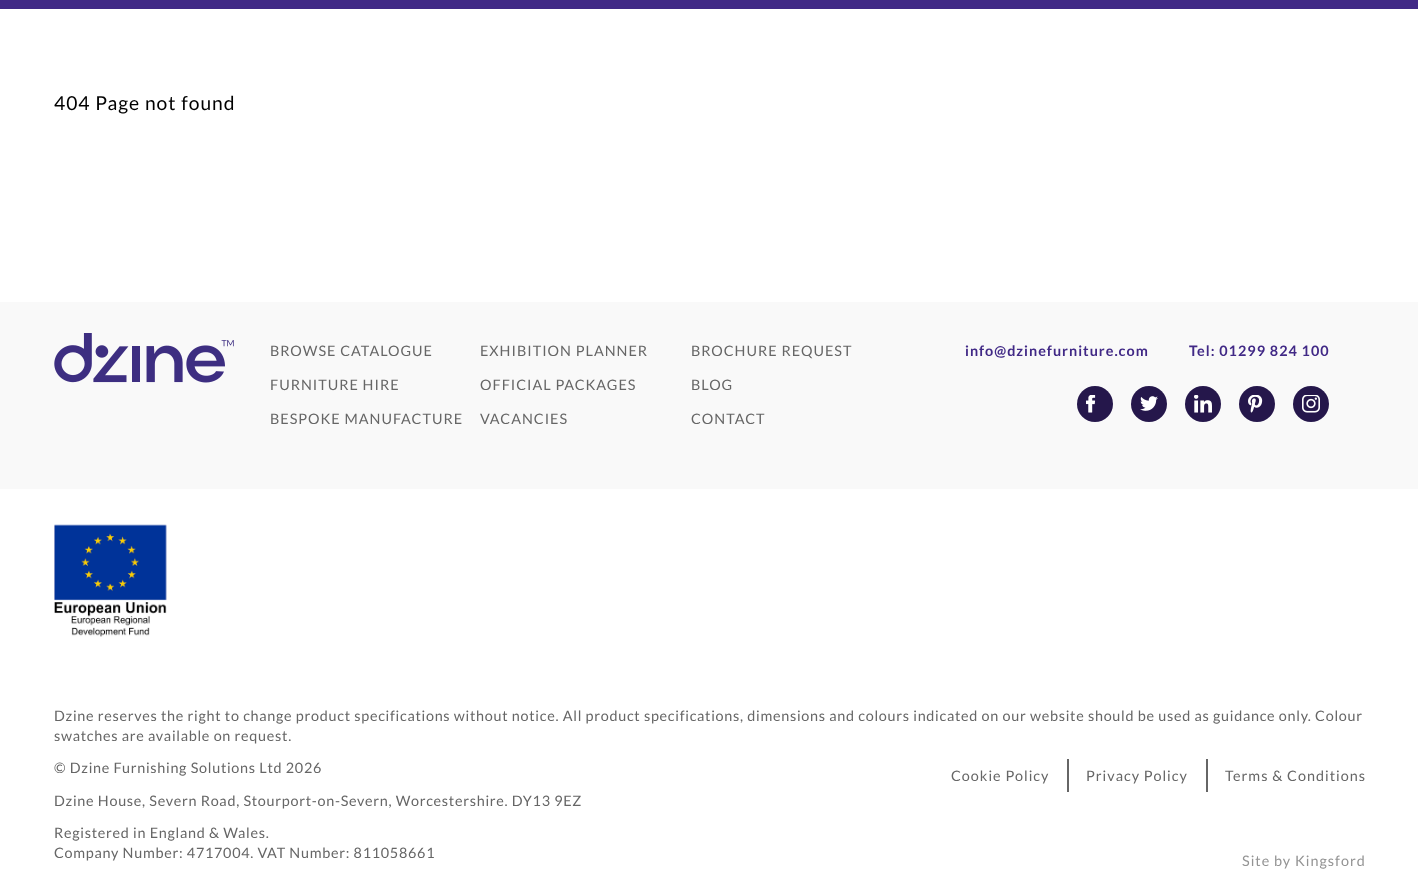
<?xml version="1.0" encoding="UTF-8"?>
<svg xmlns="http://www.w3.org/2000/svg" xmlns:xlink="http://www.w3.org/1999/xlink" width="1418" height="884">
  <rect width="100%" height="100%" fill="#ffffff" />
  <rect width="1418" height="9" fill="#412986" />
  <rect y="302" width="1418" height="187" fill="#f9f9f9" />
  <image x="54" y="333" width="180" height="50" xlink:href="image1.png" />
  <circle cx="1095" cy="404" r="18" fill="#25174b" />
  <image x="1086" y="395" width="10" height="18" xlink:href="image2.png" />
  <circle cx="1149" cy="404" r="18" fill="#25174b" />
  <image x="1140" y="396" width="18" height="15" xlink:href="image3.png" />
  <circle cx="1203" cy="404" r="18" fill="#25174b" />
  <image x="1194" y="395" width="18" height="18" xlink:href="image4.png" />
  <circle cx="1257" cy="404" r="18" fill="#25174b" />
  <image x="1248" y="395" width="15" height="18" xlink:href="image5.png" />
  <circle cx="1311" cy="404" r="18" fill="#25174b" />
  <image x="1302" y="395" width="18" height="18" xlink:href="image6.png" />
  <image x="54" y="524" width="113" height="113" xlink:href="image7.png" />
  <rect x="1067" y="759" width="2" height="33" fill="#666666" />
  <rect x="1206" y="759" width="2" height="33" fill="#666666" />
  <text x="54" y="110" style="font-family: Lato; font-size: 19.25px; letter-spacing: 1px; fill: #000000">404 Page not found</text>
  <text x="270" y="356" style="font-family: Lato; font-size: 14.4px; letter-spacing: 1px; fill: #666666">BROWSE CATALOGUE</text>
  <text x="480" y="356" style="font-family: Lato; font-size: 14.4px; letter-spacing: 1px; fill: #666666">EXHIBITION PLANNER</text>
  <text x="691" y="356" style="font-family: Lato; font-size: 14.4px; letter-spacing: 1px; fill: #666666">BROCHURE REQUEST</text>
  <text x="270" y="390" style="font-family: Lato; font-size: 14.4px; letter-spacing: 1px; fill: #666666">FURNITURE HIRE</text>
  <text x="480" y="390" style="font-family: Lato; font-size: 14.4px; letter-spacing: 1px; fill: #666666">OFFICIAL PACKAGES</text>
  <text x="691" y="390" style="font-family: Lato; font-size: 14.4px; letter-spacing: 1px; fill: #666666">BLOG</text>
  <text x="270" y="424" style="font-family: Lato; font-size: 14.4px; letter-spacing: 1px; fill: #666666">BESPOKE MANUFACTURE</text>
  <text x="480" y="424" style="font-family: Lato; font-size: 14.4px; letter-spacing: 1px; fill: #666666">VACANCIES</text>
  <text x="691" y="424" style="font-family: Lato; font-size: 14.4px; letter-spacing: 1px; fill: #666666">CONTACT</text>
  <text x="965" y="356" style="font-family: Lato; font-size: 14.4px; font-weight: bold; letter-spacing: 1px; fill: #412986">info@dzinefurniture.com</text>
  <text x="1189" y="356" style="font-family: Lato; font-size: 14.4px; font-weight: bold; letter-spacing: 1px; fill: #412986">Tel: 01299 824 100</text>
  <text x="54" y="721" style="font-family: Lato; font-size: 14.4px; letter-spacing: 0.72px; fill: #666666">Dzine reserves the right to change product specifications without notice. All product specifications, dimensions and colours indicated on our website should be used as guidance only. Colour</text>
  <text x="54" y="741" style="font-family: Lato; font-size: 14.4px; letter-spacing: 0.72px; fill: #666666">swatches are available on request.</text>
  <text x="54" y="773" style="font-family: Lato; font-size: 14.4px; letter-spacing: 0.72px; fill: #666666">© Dzine Furnishing Solutions Ltd 2026</text>
  <text x="54" y="806" style="font-family: Lato; font-size: 14.4px; letter-spacing: 0.72px; fill: #666666">Dzine House, Severn Road, Stourport-on-Severn, Worcestershire. DY13 9EZ</text>
  <text x="54" y="838" style="font-family: Lato; font-size: 14.4px; letter-spacing: 0.72px; fill: #666666">Registered in England &amp; Wales.</text>
  <text x="54" y="858" style="font-family: Lato; font-size: 14.4px; letter-spacing: 0.72px; fill: #666666">Company Number: 4717004. VAT Number: 811058661</text>
  <text x="951" y="781" style="font-family: Lato; font-size: 14.4px; letter-spacing: 1px; fill: #666666">Cookie Policy</text>
  <text x="1086" y="781" style="font-family: Lato; font-size: 14.4px; letter-spacing: 1px; fill: #666666">Privacy Policy</text>
  <text x="1225" y="781" style="font-family: Lato; font-size: 14.4px; letter-spacing: 1px; fill: #666666">Terms &amp; Conditions</text>
  <text x="1242" y="866" style="font-family: Lato; font-size: 14.4px; letter-spacing: 1px; fill: #949494">Site by Kingsford</text>
</svg>
